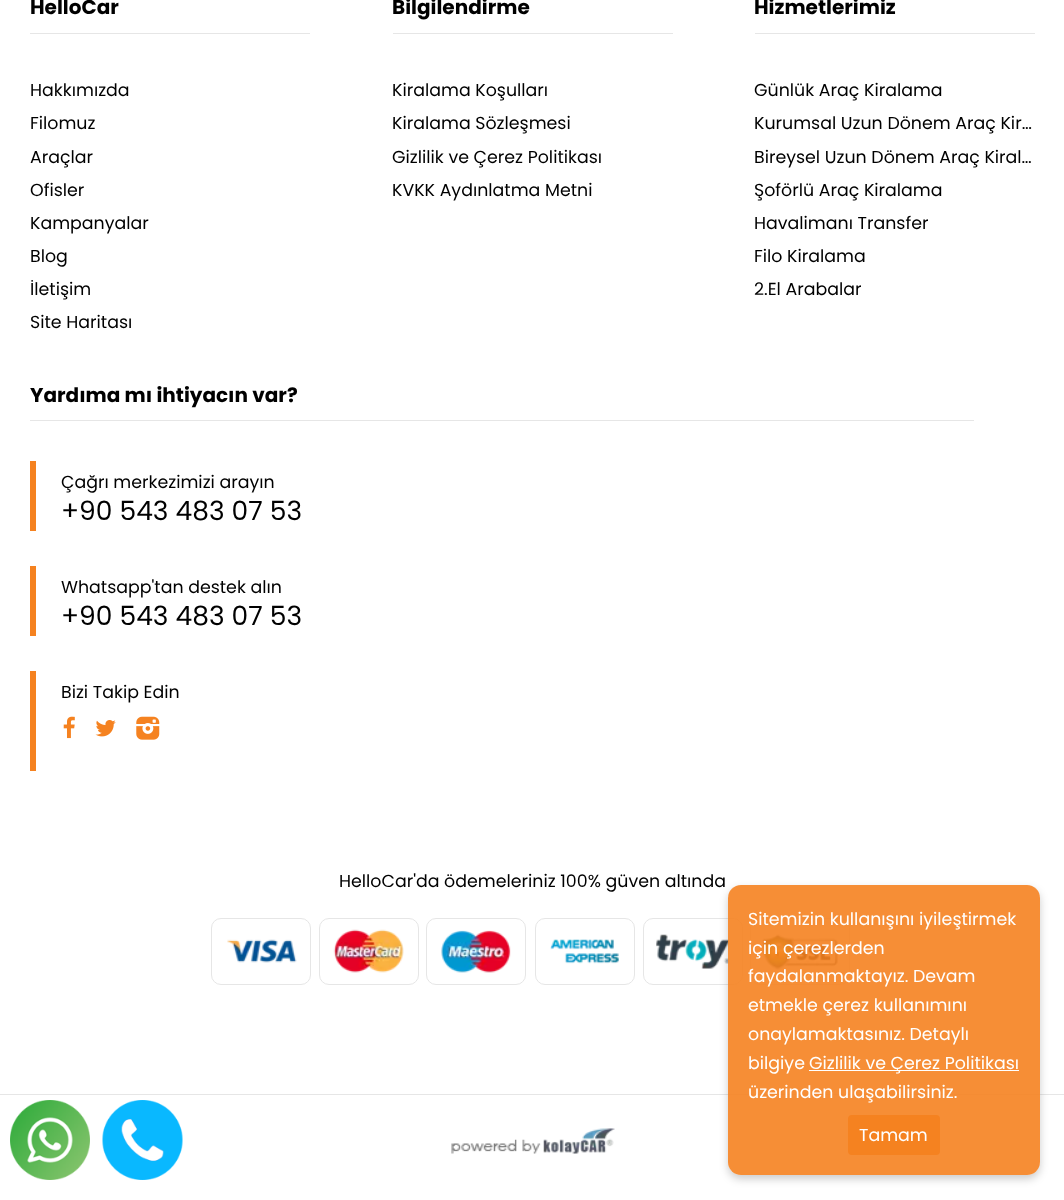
<?xml version="1.0" encoding="UTF-8"?>
<svg xmlns="http://www.w3.org/2000/svg" xmlns:xlink="http://www.w3.org/1999/xlink" width="1064" height="1200">
  <defs>
    <clipPath id="clip1"><path d="M 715 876 h 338 v 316 h -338 z m 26 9 h 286 c 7 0 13 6 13 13 v 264 c 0 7 -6 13 -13 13 h -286 c -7 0 -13 -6 -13 -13 v -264 c 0 -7 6 -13 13 -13 z" clip-rule="evenodd" /></clipPath>
  </defs>
  <rect width="100%" height="100%" fill="#ffffff" />
  <rect x="30" y="33" width="280" height="1" fill="#e6e6e6" />
  <rect x="393" y="33" width="280" height="1" fill="#e6e6e6" />
  <rect x="755" y="33" width="280" height="1" fill="#e6e6e6" />
  <rect x="30" y="420" width="944" height="1" fill="#e6e6e6" />
  <rect x="30" y="461" width="6" height="70" fill="#f58220" />
  <rect x="30" y="566" width="6" height="70" fill="#f58220" />
  <rect x="30" y="671" width="6" height="100" fill="#f58220" />
  <image x="63" y="716" width="12" height="23" xlink:href="image1.png" />
  <image x="95" y="720" width="21" height="17" xlink:href="image2.png" />
  <image x="136" y="716" width="24" height="24" xlink:href="image3.png" />
  <image x="227" y="939" width="70" height="24" xlink:href="image4.png" />
  <rect x="211.5" y="918.5" width="99" height="66" rx="9.5" fill="none" stroke="#e6e6e6" />
  <image x="333" y="929" width="71" height="44" xlink:href="image5.png" />
  <rect x="319.5" y="918.5" width="99" height="66" rx="9.5" fill="none" stroke="#e6e6e6" />
  <image x="441" y="930" width="70" height="43" xlink:href="image6.png" />
  <rect x="426.5" y="918.5" width="99" height="66" rx="9.5" fill="none" stroke="#e6e6e6" />
  <image x="550" y="939" width="69" height="25" xlink:href="image7.png" />
  <rect x="535.5" y="918.5" width="99" height="66" rx="9.5" fill="none" stroke="#e6e6e6" />
  <image x="656" y="934" width="73" height="35" xlink:href="image8.png" />
  <rect x="643.5" y="918.5" width="99" height="66" rx="9.5" fill="none" stroke="#e6e6e6" />
  <image x="762" y="933" width="76" height="37" xlink:href="image9.png" />
  <rect x="750.5" y="918.5" width="99" height="66" rx="9.5" fill="none" stroke="#e6e6e6" />
  <rect y="1094" width="1064" height="1" fill="#e6e6e6" />
  <g clip-path="url(#clip1)">
    <rect x="728" y="889" width="312" height="290" rx="13" fill="#000000" fill-opacity="0.2" filter="blur(4px)" />
  </g>
  <rect x="728" y="885" width="312" height="290" rx="13" fill="#f58220" fill-opacity="0.9" />
  <rect x="809" y="1070" width="210" height="1" fill="#ffffff" />
  <rect x="848" y="1115" width="92" height="40" rx="4" fill="#f58220" />
  <image x="10" y="1100" width="80" height="80" xlink:href="image10.png" />
  <image x="102" y="1100" width="81" height="80" xlink:href="image11.png" />
  <image x="451" y="1128" width="164" height="26" xlink:href="image12.png" />
  <text x="30" y="14" style="font-family: Poppins; font-size: 20px; font-weight: bold; fill: #000000">HelloCar</text>
  <text x="30" y="96" style="font-family: Poppins; font-size: 17.4px; fill: #000000">Hakkımızda</text>
  <text x="30" y="129" style="font-family: Poppins; font-size: 17.4px; fill: #000000">Filomuz</text>
  <text x="30" y="163" style="font-family: Poppins; font-size: 17.4px; fill: #000000">Araçlar</text>
  <text x="30" y="196" style="font-family: Poppins; font-size: 17.4px; fill: #000000">Ofisler</text>
  <text x="30" y="229" style="font-family: Poppins; font-size: 17.4px; fill: #000000">Kampanyalar</text>
  <text x="30" y="262" style="font-family: Poppins; font-size: 17.4px; fill: #000000">Blog</text>
  <text x="30" y="295" style="font-family: Poppins; font-size: 17.4px; fill: #000000">İletişim</text>
  <text x="30" y="328" style="font-family: Poppins; font-size: 17.4px; fill: #000000">Site Haritası</text>
  <text x="392" y="14" style="font-family: Poppins; font-size: 20px; font-weight: bold; fill: #000000">Bilgilendirme</text>
  <text x="392" y="96" style="font-family: Poppins; font-size: 17.4px; fill: #000000">Kiralama Koşulları</text>
  <text x="392" y="129" style="font-family: Poppins; font-size: 17.4px; fill: #000000">Kiralama Sözleşmesi</text>
  <text x="392" y="163" style="font-family: Poppins; font-size: 17.4px; fill: #000000">Gizlilik ve Çerez Politikası</text>
  <text x="392" y="196" style="font-family: Poppins; font-size: 17.4px; fill: #000000">KVKK Aydınlatma Metni</text>
  <text x="754" y="14" style="font-family: Poppins; font-size: 20px; font-weight: bold; fill: #000000">Hizmetlerimiz</text>
  <text x="754" y="96" style="font-family: Poppins; font-size: 17.4px; fill: #000000">Günlük Araç Kiralama</text>
  <text x="754" y="129" style="font-family: Poppins; font-size: 17.4px; fill: #000000">Kurumsal Uzun Dönem Araç Kir…</text>
  <text x="754" y="163" style="font-family: Poppins; font-size: 17.4px; fill: #000000">Bireysel Uzun Dönem Araç Kiral…</text>
  <text x="754" y="196" style="font-family: Poppins; font-size: 17.4px; fill: #000000">Şoförlü Araç Kiralama</text>
  <text x="754" y="229" style="font-family: Poppins; font-size: 17.4px; fill: #000000">Havalimanı Transfer</text>
  <text x="754" y="262" style="font-family: Poppins; font-size: 17.4px; fill: #000000">Filo Kiralama</text>
  <text x="754" y="295" style="font-family: Poppins; font-size: 17.4px; fill: #000000">2.El Arabalar</text>
  <text x="30" y="402" style="font-family: Poppins; font-size: 20px; font-weight: bold; fill: #000000">Yardıma mı ihtiyacın var?</text>
  <text x="61" y="488" style="font-family: Poppins; font-size: 17.4px; fill: #000000">Çağrı merkezimizi arayın</text>
  <text x="61" y="520" style="font-family: Poppins; font-size: 26.5px; fill: #000000">+90 543 483 07 53</text>
  <text x="61" y="593" style="font-family: Poppins; font-size: 17.4px; fill: #000000">Whatsapp'tan destek alın</text>
  <text x="61" y="625" style="font-family: Poppins; font-size: 26.5px; fill: #000000">+90 543 483 07 53</text>
  <text x="61" y="698" style="font-family: Poppins; font-size: 17.4px; fill: #000000">Bizi Takip Edin</text>
  <text x="339" y="887" style="font-family: Poppins; font-size: 17.4px; fill: #000000">HelloCar'da ödemeleriniz 100% güven altında</text>
  <text x="748" y="925" style="font-family: Poppins; font-size: 17.4px; fill: #ffffff">Sitemizin kullanışını iyileştirmek</text>
  <text x="748" y="954" style="font-family: Poppins; font-size: 17.4px; fill: #ffffff">için çerezlerden</text>
  <text x="748" y="982" style="font-family: Poppins; font-size: 17.4px; fill: #ffffff">faydalanmaktayız. Devam</text>
  <text x="748" y="1011" style="font-family: Poppins; font-size: 17.4px; fill: #ffffff">etmekle çerez kullanımını</text>
  <text x="748" y="1040" style="font-family: Poppins; font-size: 17.4px; fill: #ffffff">onaylamaktasınız. Detaylı</text>
  <text x="748" y="1069" style="font-family: Poppins; font-size: 17.4px; fill: #ffffff">bilgiye</text>
  <text x="809" y="1069" style="font-family: Poppins; font-size: 17.4px; fill: #ffffff">Gizlilik ve Çerez Politikası</text>
  <text x="748" y="1098" style="font-family: Poppins; font-size: 17.4px; fill: #ffffff">üzerinden ulaşabilirsiniz.</text>
  <text x="859" y="1141" style="font-family: Poppins; font-size: 17.4px; fill: #ffffff">Tamam</text>
</svg>
